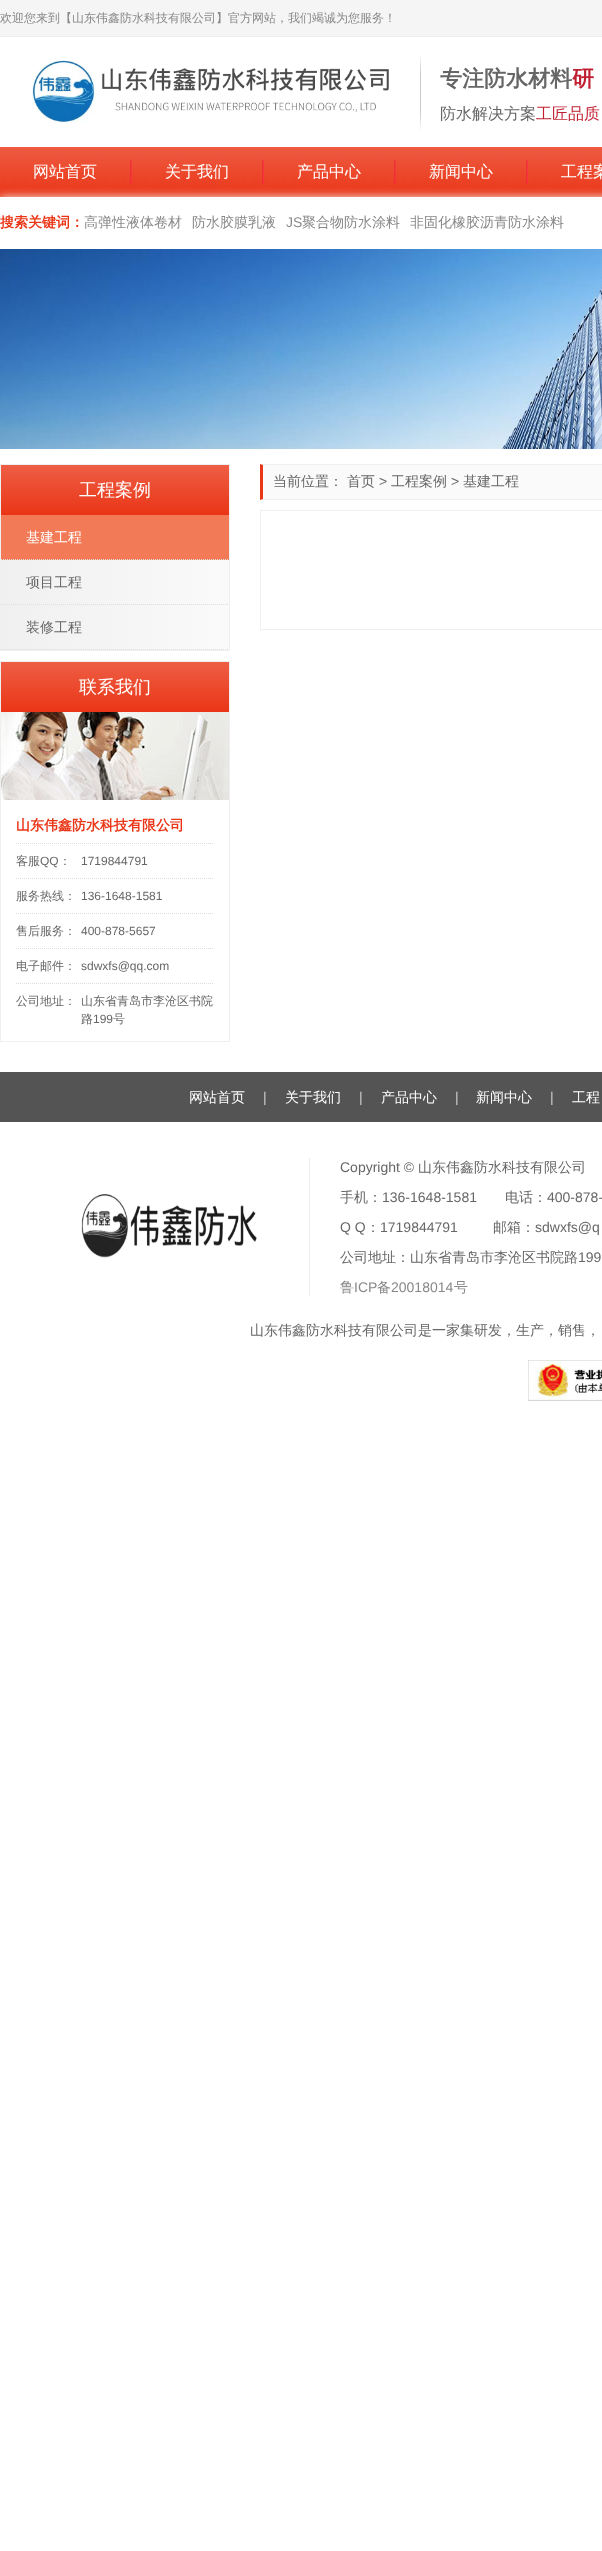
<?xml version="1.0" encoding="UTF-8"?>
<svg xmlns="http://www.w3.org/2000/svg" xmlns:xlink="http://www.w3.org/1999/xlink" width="602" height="2551">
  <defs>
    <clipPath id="clip1"><rect x="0" y="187" width="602" height="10" /></clipPath>
    <linearGradient id="g1" gradientUnits="userSpaceOnUse" x1="115" y1="515" x2="115" y2="465"><stop offset="0" stop-color="#ea3516" /><stop offset="1" stop-color="#ee5e45" /></linearGradient>
    <linearGradient id="g2" gradientUnits="userSpaceOnUse" x1="229" y1="582" x2="1" y2="582"><stop offset="0" stop-color="#fafafa" /><stop offset="1" stop-color="#f0f0f0" /></linearGradient>
    <linearGradient id="g3" gradientUnits="userSpaceOnUse" x1="229" y1="627" x2="1" y2="627"><stop offset="0" stop-color="#fafafa" /><stop offset="1" stop-color="#f0f0f0" /></linearGradient>
    <linearGradient id="g4" gradientUnits="userSpaceOnUse" x1="115" y1="712" x2="115" y2="662"><stop offset="0" stop-color="#ea3516" /><stop offset="1" stop-color="#ee5e45" /></linearGradient>
  </defs>
  <rect width="100%" height="100%" fill="#ffffff" />
  <rect width="602" height="36" fill="#f5f5f5" />
  <rect y="36" width="602" height="1" fill="#eeeeee" />
  <image x="32" y="60" width="357" height="63" xlink:href="image1.png" />
  <image x="420" y="54" width="1" height="77" xlink:href="image2.png" />
  <image x="0" y="147" width="602" height="50" xlink:href="image3.png" />
  <g clip-path="url(#clip1)">
    <rect y="197" width="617" height="52" fill="#eeeeee" filter="blur(5px)" />
  </g>
  <image x="130" y="160" width="2" height="24" xlink:href="image4.png" />
  <image x="262" y="160" width="2" height="24" xlink:href="image5.png" />
  <image x="394" y="160" width="2" height="24" xlink:href="image6.png" />
  <image x="526" y="160" width="2" height="24" xlink:href="image7.png" />
  <image x="0" y="249" width="602" height="200" xlink:href="image8.png" />
  <rect x="0.5" y="464.5" width="229" height="186" fill="none" stroke="#efefef" />
  <rect x="1" y="465" width="228" height="50" fill="url(#g1)" />
  <rect x="1" y="515" width="228" height="45" fill="#f37a57" />
  <path d="M 1 559.5 h 228" fill="none" stroke="#dddddd" stroke-dasharray="1 1" />
  <rect x="1" y="560" width="228" height="45" fill="url(#g2)" />
  <path d="M 1 604.5 h 228" fill="none" stroke="#dddddd" stroke-dasharray="1 1" />
  <rect x="1" y="605" width="228" height="45" fill="url(#g3)" />
  <path d="M 1 649.5 h 228" fill="none" stroke="#dddddd" stroke-dasharray="1 1" />
  <rect x="0.5" y="661.5" width="229" height="380" fill="none" stroke="#efefef" />
  <rect x="1" y="662" width="228" height="50" fill="url(#g4)" />
  <image x="1" y="712" width="228" height="88" xlink:href="image9.png" />
  <path d="M 16 843.5 h 198" fill="none" stroke="#dddddd" stroke-dasharray="1 1" />
  <path d="M 16 878.5 h 198" fill="none" stroke="#dddddd" stroke-dasharray="1 1" />
  <path d="M 16 913.5 h 198" fill="none" stroke="#dddddd" stroke-dasharray="1 1" />
  <path d="M 16 948.5 h 198" fill="none" stroke="#dddddd" stroke-dasharray="1 1" />
  <path d="M 16 983.5 h 198" fill="none" stroke="#dddddd" stroke-dasharray="1 1" />
  <rect x="263" y="465" width="339" height="34" fill="#fafafa" />
  <path d="M 260 464 h 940 l -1 1 h -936 z" fill="#efefef" />
  <path d="M 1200 500 h -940 l 3 -1 h 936 z" fill="#efefef" />
  <path d="M 260 500 v -36 l 3 1 v 34 z" fill="#ea3516" />
  <rect x="260.5" y="510.5" width="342" height="119" fill="none" stroke="#efefef" />
  <rect y="1072" width="602" height="50" fill="#545454" />
  <image x="81" y="1194" width="176" height="64" xlink:href="image10.png" />
  <rect x="309" y="1158" width="1" height="138" fill="#eeeeee" />
  <image x="528" y="1360" width="74" height="41" xlink:href="image11.png" />
  <text x="0" y="22" style="font-family: WenQuanYi Zen Hei; font-size: 12px; font-weight: 500; fill: #888888">欢迎您来到【山东伟鑫防水科技有限公司】官方网站，我们竭诚为您服务！</text>
  <text x="440" y="86" style="font-family: WenQuanYi Zen Hei; font-size: 22px; font-weight: bold; fill: #666666">专注防水材料</text>
  <text x="572" y="86" style="font-family: WenQuanYi Zen Hei; font-size: 22px; font-weight: bold; fill: #c01f31">研</text>
  <text x="440" y="119" style="font-family: WenQuanYi Zen Hei; font-size: 16px; font-weight: 500; fill: #666666">防水解决方案</text>
  <text x="536" y="119" style="font-family: WenQuanYi Zen Hei; font-size: 16px; font-weight: 500; fill: #c01f31">工匠品质</text>
  <text x="33" y="177" style="font-family: WenQuanYi Zen Hei; font-size: 16px; font-weight: 500; fill: #ffffff">网站首页</text>
  <text x="165" y="177" style="font-family: WenQuanYi Zen Hei; font-size: 16px; font-weight: 500; fill: #ffffff">关于我们</text>
  <text x="297" y="177" style="font-family: WenQuanYi Zen Hei; font-size: 16px; font-weight: 500; fill: #ffffff">产品中心</text>
  <text x="429" y="177" style="font-family: WenQuanYi Zen Hei; font-size: 16px; font-weight: 500; fill: #ffffff">新闻中心</text>
  <text x="561" y="177" style="font-family: WenQuanYi Zen Hei; font-size: 16px; font-weight: 500; fill: #ffffff">工程案</text>
  <text x="0" y="227" style="font-family: WenQuanYi Zen Hei; font-size: 14px; font-weight: bold; fill: #ea3516">搜索关键词：</text>
  <text x="84" y="227" style="font-family: WenQuanYi Zen Hei; font-size: 14px; font-weight: 500; fill: #888888">高弹性液体卷材</text>
  <text x="192" y="227" style="font-family: WenQuanYi Zen Hei; font-size: 14px; font-weight: 500; fill: #888888">防水胶膜乳液</text>
  <text x="286" y="227" style="font-family: Liberation Sans; font-size: 14px; fill: #888888">JS</text>
  <text x="302" y="227" style="font-family: WenQuanYi Zen Hei; font-size: 14px; font-weight: 500; fill: #888888">聚合物防水涂料</text>
  <text x="410" y="227" style="font-family: WenQuanYi Zen Hei; font-size: 14px; font-weight: 500; fill: #888888">非固化橡胶沥青防水涂料</text>
  <text x="79" y="496" style="font-family: WenQuanYi Zen Hei; font-size: 18px; font-weight: 500; fill: #ffffff">工程案例</text>
  <text x="26" y="542" style="font-family: WenQuanYi Zen Hei; font-size: 14px; font-weight: 500; fill: #ffffff">基建工程</text>
  <text x="26" y="587" style="font-family: WenQuanYi Zen Hei; font-size: 14px; font-weight: 500; fill: #666666">项目工程</text>
  <text x="26" y="632" style="font-family: WenQuanYi Zen Hei; font-size: 14px; font-weight: 500; fill: #666666">装修工程</text>
  <text x="79" y="693" style="font-family: WenQuanYi Zen Hei; font-size: 18px; font-weight: 500; fill: #ffffff">联系我们</text>
  <text x="16" y="830" style="font-family: WenQuanYi Zen Hei; font-size: 14px; font-weight: bold; fill: #ea3516">山东伟鑫防水科技有限公司</text>
  <text x="16" y="865" style="font-family: WenQuanYi Zen Hei; font-size: 12px; font-weight: 500; fill: #666666">客服</text>
  <text x="40" y="865" style="font-family: Liberation Sans; font-size: 12px; fill: #666666">QQ</text>
  <text x="59" y="865" style="font-family: WenQuanYi Zen Hei; font-size: 12px; font-weight: 500; fill: #666666">：</text>
  <text x="81" y="865" style="font-family: Liberation Sans; font-size: 12px; fill: #666666">1719844791</text>
  <text x="16" y="900" style="font-family: WenQuanYi Zen Hei; font-size: 12px; font-weight: 500; fill: #666666">服务热线：</text>
  <text x="81" y="900" style="font-family: Liberation Sans; font-size: 12px; fill: #666666">136-1648-1581</text>
  <text x="16" y="935" style="font-family: WenQuanYi Zen Hei; font-size: 12px; font-weight: 500; fill: #666666">售后服务：</text>
  <text x="81" y="935" style="font-family: Liberation Sans; font-size: 12px; fill: #666666">400-878-5657</text>
  <text x="16" y="970" style="font-family: WenQuanYi Zen Hei; font-size: 12px; font-weight: 500; fill: #666666">电子邮件：</text>
  <text x="81" y="970" style="font-family: Liberation Sans; font-size: 12px; fill: #666666">sdwxfs@qq.com</text>
  <text x="16" y="1005" style="font-family: WenQuanYi Zen Hei; font-size: 12px; font-weight: 500; fill: #666666">公司地址：</text>
  <text x="81" y="1005" style="font-family: WenQuanYi Zen Hei; font-size: 12px; font-weight: 500; fill: #666666">山东省青岛市李沧区书院</text>
  <text x="81" y="1023" style="font-family: WenQuanYi Zen Hei; font-size: 12px; font-weight: 500; fill: #666666">路</text>
  <text x="93" y="1023" style="font-family: Liberation Sans; font-size: 12px; fill: #666666">199</text>
  <text x="113" y="1023" style="font-family: WenQuanYi Zen Hei; font-size: 12px; font-weight: 500; fill: #666666">号</text>
  <text x="273" y="486" style="font-family: WenQuanYi Zen Hei; font-size: 14px; font-weight: 500; fill: #666666">当前位置：</text>
  <text x="347" y="486" style="font-family: WenQuanYi Zen Hei; font-size: 14px; font-weight: 500; fill: #666666">首页</text>
  <text x="379" y="486" style="font-family: Liberation Sans; font-size: 14px; fill: #666666">&gt;</text>
  <text x="391" y="486" style="font-family: WenQuanYi Zen Hei; font-size: 14px; font-weight: 500; fill: #666666">工程案例</text>
  <text x="451" y="486" style="font-family: Liberation Sans; font-size: 14px; fill: #666666">&gt;</text>
  <text x="463" y="486" style="font-family: WenQuanYi Zen Hei; font-size: 14px; font-weight: 500; fill: #666666">基建工程</text>
  <text x="189" y="1102" style="font-family: WenQuanYi Zen Hei; font-size: 14px; font-weight: 500; fill: #ffffff">网站首页</text>
  <text x="263" y="1102" style="font-family: Liberation Sans; font-size: 14px; fill: #cccccc">|</text>
  <text x="285" y="1102" style="font-family: WenQuanYi Zen Hei; font-size: 14px; font-weight: 500; fill: #ffffff">关于我们</text>
  <text x="359" y="1102" style="font-family: Liberation Sans; font-size: 14px; fill: #cccccc">|</text>
  <text x="381" y="1102" style="font-family: WenQuanYi Zen Hei; font-size: 14px; font-weight: 500; fill: #ffffff">产品中心</text>
  <text x="455" y="1102" style="font-family: Liberation Sans; font-size: 14px; fill: #cccccc">|</text>
  <text x="476" y="1102" style="font-family: WenQuanYi Zen Hei; font-size: 14px; font-weight: 500; fill: #ffffff">新闻中心</text>
  <text x="550" y="1102" style="font-family: Liberation Sans; font-size: 14px; fill: #cccccc">|</text>
  <text x="572" y="1102" style="font-family: WenQuanYi Zen Hei; font-size: 14px; font-weight: 500; fill: #ffffff">工程</text>
  <text x="340" y="1172" style="font-family: Liberation Sans; font-size: 14px; fill: #666666">Copyright ©</text>
  <text x="418" y="1172" style="font-family: WenQuanYi Zen Hei; font-size: 14px; font-weight: 500; fill: #666666">山东伟鑫防水科技有限公司</text>
  <text x="340" y="1202" style="font-family: WenQuanYi Zen Hei; font-size: 14px; font-weight: 500; fill: #666666">手机：</text>
  <text x="382" y="1202" style="font-family: Liberation Sans; font-size: 14px; fill: #666666">136-1648-1581</text>
  <text x="505" y="1202" style="font-family: WenQuanYi Zen Hei; font-size: 14px; font-weight: 500; fill: #666666">电话：</text>
  <text x="547" y="1202" style="font-family: Liberation Sans; font-size: 14px; fill: #666666">400-878-</text>
  <text x="340" y="1232" style="font-family: Liberation Sans; font-size: 14px; fill: #666666">Q Q</text>
  <text x="366" y="1232" style="font-family: WenQuanYi Zen Hei; font-size: 14px; font-weight: 500; fill: #666666">：</text>
  <text x="380" y="1232" style="font-family: Liberation Sans; font-size: 14px; fill: #666666">1719844791</text>
  <text x="493" y="1232" style="font-family: WenQuanYi Zen Hei; font-size: 14px; font-weight: 500; fill: #666666">邮箱：</text>
  <text x="535" y="1232" style="font-family: Liberation Sans; font-size: 14px; fill: #666666">sdwxfs@q</text>
  <text x="340" y="1262" style="font-family: WenQuanYi Zen Hei; font-size: 14px; font-weight: 500; fill: #666666">公司地址：山东省青岛市李沧区书院路</text>
  <text x="578" y="1262" style="font-family: Liberation Sans; font-size: 14px; fill: #666666">199</text>
  <text x="340" y="1292" style="font-family: WenQuanYi Zen Hei; font-size: 14px; font-weight: 500; fill: #888888">鲁</text>
  <text x="354" y="1292" style="font-family: Liberation Sans; font-size: 14px; fill: #888888">ICP</text>
  <text x="377" y="1292" style="font-family: WenQuanYi Zen Hei; font-size: 14px; font-weight: 500; fill: #888888">备</text>
  <text x="391" y="1292" style="font-family: Liberation Sans; font-size: 14px; fill: #888888">20018014</text>
  <text x="454" y="1292" style="font-family: WenQuanYi Zen Hei; font-size: 14px; font-weight: 500; fill: #888888">号</text>
  <text x="250" y="1335" style="font-family: WenQuanYi Zen Hei; font-size: 14px; font-weight: 500; fill: #666666">山东伟鑫防水科技有限公司是一家集研发，生产，销售，</text>
</svg>
